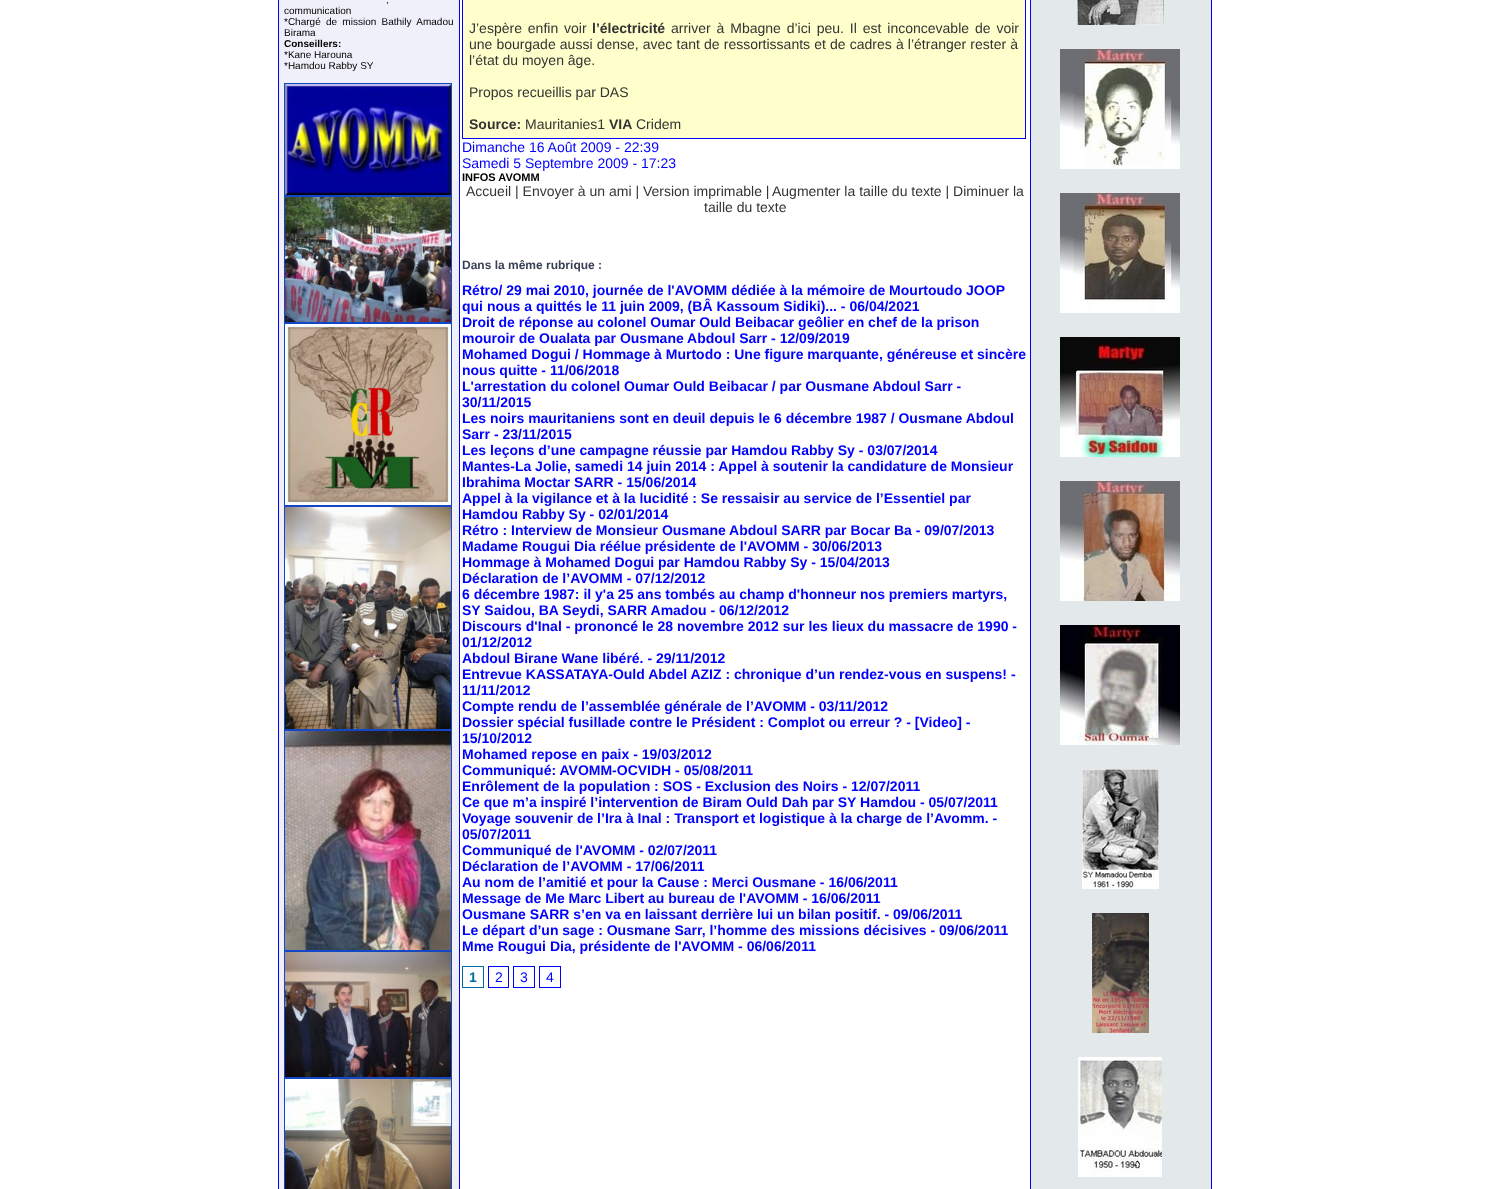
<?xml version="1.0" encoding="UTF-8"?>
<svg xmlns="http://www.w3.org/2000/svg" xmlns:xlink="http://www.w3.org/1999/xlink" width="1490" height="1189">
  <rect width="100%" height="100%" fill="#ffffff" />
  <rect x="459" width="1" height="1189" fill="#0000ff" />
  <rect x="278" width="1" height="1189" fill="#0000ff" />
  <rect x="279" width="180" height="1189" fill="#f0f0fa" />
  <rect x="284.5" y="83.5" width="167" height="112" fill="none" stroke="#1248c7" />
  <image x="285" y="84" width="166" height="111" xlink:href="image1.png" />
  <rect x="284.5" y="196.5" width="167" height="126" fill="none" stroke="#1248c7" />
  <image x="285" y="197" width="166" height="125" xlink:href="image2.png" />
  <rect x="284.5" y="323.5" width="167" height="182" fill="none" stroke="#1248c7" />
  <image x="285" y="324" width="166" height="181" xlink:href="image3.png" />
  <rect x="284.5" y="506.5" width="167" height="223" fill="none" stroke="#1248c7" />
  <image x="285" y="507" width="166" height="222" xlink:href="image4.png" />
  <rect x="284.5" y="730.5" width="167" height="220" fill="none" stroke="#1248c7" />
  <image x="285" y="731" width="166" height="219" xlink:href="image5.png" />
  <rect x="284.5" y="951.5" width="167" height="126" fill="none" stroke="#1248c7" />
  <image x="285" y="952" width="166" height="125" xlink:href="image6.png" />
  <rect x="284.5" y="1078.5" width="167" height="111" fill="none" stroke="#1248c7" />
  <image x="285" y="1079" width="166" height="110" xlink:href="image7.png" />
  <rect x="462.5" y="-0.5" width="563" height="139" fill="#ffffcc" stroke="#0000ff" />
  <rect x="462.5" y="966.5" width="21" height="21" fill="none" stroke="#016ca1" />
  <rect x="488.5" y="966.5" width="20" height="21" fill="none" stroke="#0000ff" />
  <rect x="513.5" y="966.5" width="21" height="21" fill="none" stroke="#0000ff" />
  <rect x="539.5" y="966.5" width="21" height="21" fill="none" stroke="#0000ff" />
  <rect x="1211" width="1" height="1189" fill="#0000ff" />
  <rect x="1030" width="1" height="1189" fill="#0000ff" />
  <rect x="1031" width="180" height="1189" fill="#e3e9eb" />
  <image x="1077" y="0" width="87" height="25" xlink:href="image8.png" />
  <image x="1060" y="49" width="120" height="120" xlink:href="image9.png" />
  <image x="1060" y="193" width="120" height="120" xlink:href="image10.png" />
  <image x="1060" y="337" width="120" height="120" xlink:href="image11.png" />
  <image x="1060" y="481" width="120" height="120" xlink:href="image12.png" />
  <image x="1060" y="625" width="120" height="120" xlink:href="image13.png" />
  <image x="1082" y="769" width="77" height="120" xlink:href="image14.png" />
  <image x="1092" y="913" width="57" height="120" xlink:href="image15.png" />
  <image x="1078" y="1057" width="84" height="120" xlink:href="image16.png" />
  <text x="386" y="3" word-spacing="1" style="font-family: Liberation Sans; font-size: 10px; fill: #000000">,</text>
  <text x="284" y="14" style="font-family: Liberation Sans; font-size: 10px; fill: #000000">communication</text>
  <text x="284" y="25" word-spacing="2.5" style="font-family: Liberation Sans; font-size: 10px; fill: #000000">*Chargé de mission Bathily Amadou</text>
  <text x="284" y="36" style="font-family: Liberation Sans; font-size: 10px; fill: #000000">Birama</text>
  <text x="284" y="47" style="font-family: Liberation Sans; font-size: 10px; font-weight: bold; fill: #000000">Conseillers:</text>
  <text x="284" y="58" style="font-family: Liberation Sans; font-size: 10px; fill: #000000">*Kane Harouna</text>
  <text x="284" y="69" style="font-family: Liberation Sans; font-size: 10px; fill: #000000">*Hamdou Rabby SY</text>
  <text x="469" y="33" word-spacing="2" style="font-family: Liberation Sans; font-size: 14px; fill: #333333">J’espère enfin voir</text>
  <text x="592" y="33" style="font-family: Liberation Sans; font-size: 14px; font-weight: bold; fill: #333333">l’électricité</text>
  <text x="671" y="33" word-spacing="2" style="font-family: Liberation Sans; font-size: 14px; fill: #333333">arriver à Mbagne d’ici peu. Il est inconcevable de voir</text>
  <text x="469" y="49" word-spacing="0.25" style="font-family: Liberation Sans; font-size: 14px; fill: #333333">une bourgade aussi dense, avec tant de ressortissants et de cadres à l’étranger rester à</text>
  <text x="469" y="65" style="font-family: Liberation Sans; font-size: 14px; fill: #333333">l’état du moyen âge.</text>
  <text x="469" y="97" style="font-family: Liberation Sans; font-size: 14px; fill: #333333">Propos recueillis par DAS</text>
  <text x="469" y="129" style="font-family: Liberation Sans; font-size: 14px; font-weight: bold; fill: #333333">Source:</text>
  <text x="525" y="129" style="font-family: Liberation Sans; font-size: 14px; fill: #333333">Mauritanies1</text>
  <text x="609" y="129" style="font-family: Liberation Sans; font-size: 14px; font-weight: bold; fill: #333333">VIA</text>
  <text x="636" y="129" style="font-family: Liberation Sans; font-size: 14px; fill: #333333">Cridem</text>
  <text x="462" y="152" style="font-family: Liberation Sans; font-size: 14px; fill: #0000ff">Dimanche 16 Août 2009 - 22:39</text>
  <text x="462" y="168" style="font-family: Liberation Sans; font-size: 14px; fill: #0000ff">Samedi 5 Septembre 2009 - 17:23</text>
  <text x="462" y="181" style="font-family: Liberation Sans; font-size: 11px; font-weight: bold; fill: #000000">INFOS AVOMM</text>
  <text x="466" y="196" style="font-family: Liberation Sans; font-size: 14px; fill: #333333">Accueil | Envoyer à un ami | Version imprimable |</text>
  <text x="772" y="196" style="font-family: Liberation Sans; font-size: 14px; fill: #333333">Augmenter la taille du texte | Diminuer la</text>
  <text x="704" y="212" style="font-family: Liberation Sans; font-size: 14px; fill: #333333">taille du texte</text>
  <text x="462" y="269" style="font-family: Liberation Sans; font-size: 12px; font-weight: bold; fill: #393f54">Dans la même rubrique :</text>
  <text x="462" y="295" style="font-family: Liberation Sans; font-size: 14px; font-weight: bold; fill: #0000ff">Rétro/ 29 mai 2010, journée de l'AVOMM dédiée à la mémoire de Mourtoudo JOOP</text>
  <text x="462" y="311" style="font-family: Liberation Sans; font-size: 14px; font-weight: bold; fill: #0000ff">qui nous a quittés le 11 juin 2009, (BÂ Kassoum Sidiki)... - 06/04/2021</text>
  <text x="462" y="327" style="font-family: Liberation Sans; font-size: 14px; font-weight: bold; fill: #0000ff">Droit de réponse au colonel Oumar Ould Beibacar geôlier en chef de la prison</text>
  <text x="462" y="343" style="font-family: Liberation Sans; font-size: 14px; font-weight: bold; fill: #0000ff">mouroir de Oualata par Ousmane Abdoul Sarr - 12/09/2019</text>
  <text x="462" y="359" style="font-family: Liberation Sans; font-size: 14px; font-weight: bold; fill: #0000ff">Mohamed Dogui / Hommage à Murtodo : Une figure marquante, généreuse et sincère</text>
  <text x="462" y="375" style="font-family: Liberation Sans; font-size: 14px; font-weight: bold; fill: #0000ff">nous quitte - 11/06/2018</text>
  <text x="462" y="391" style="font-family: Liberation Sans; font-size: 14px; font-weight: bold; fill: #0000ff">L'arrestation du colonel Oumar Ould Beibacar / par Ousmane Abdoul Sarr -</text>
  <text x="462" y="407" style="font-family: Liberation Sans; font-size: 14px; font-weight: bold; fill: #0000ff">30/11/2015</text>
  <text x="462" y="423" style="font-family: Liberation Sans; font-size: 14px; font-weight: bold; fill: #0000ff">Les noirs mauritaniens sont en deuil depuis le 6 décembre 1987 / Ousmane Abdoul</text>
  <text x="462" y="439" style="font-family: Liberation Sans; font-size: 14px; font-weight: bold; fill: #0000ff">Sarr - 23/11/2015</text>
  <text x="462" y="455" style="font-family: Liberation Sans; font-size: 14px; font-weight: bold; fill: #0000ff">Les leçons d’une campagne réussie par Hamdou Rabby Sy - 03/07/2014</text>
  <text x="462" y="471" style="font-family: Liberation Sans; font-size: 14px; font-weight: bold; fill: #0000ff">Mantes-La Jolie, samedi 14 juin 2014 : Appel à soutenir la candidature de Monsieur</text>
  <text x="462" y="487" style="font-family: Liberation Sans; font-size: 14px; font-weight: bold; fill: #0000ff">Ibrahima Moctar SARR - 15/06/2014</text>
  <text x="462" y="503" style="font-family: Liberation Sans; font-size: 14px; font-weight: bold; fill: #0000ff">Appel à la vigilance et à la lucidité : Se ressaisir au service de l’Essentiel par</text>
  <text x="462" y="519" style="font-family: Liberation Sans; font-size: 14px; font-weight: bold; fill: #0000ff">Hamdou Rabby Sy - 02/01/2014</text>
  <text x="462" y="535" style="font-family: Liberation Sans; font-size: 14px; font-weight: bold; fill: #0000ff">Rétro : Interview de Monsieur Ousmane Abdoul SARR par Bocar Ba - 09/07/2013</text>
  <text x="462" y="551" style="font-family: Liberation Sans; font-size: 14px; font-weight: bold; fill: #0000ff">Madame Rougui Dia réélue présidente de l'AVOMM - 30/06/2013</text>
  <text x="462" y="567" style="font-family: Liberation Sans; font-size: 14px; font-weight: bold; fill: #0000ff">Hommage à Mohamed Dogui par Hamdou Rabby Sy - 15/04/2013</text>
  <text x="462" y="583" style="font-family: Liberation Sans; font-size: 14px; font-weight: bold; fill: #0000ff">Déclaration de l’AVOMM - 07/12/2012</text>
  <text x="462" y="599" style="font-family: Liberation Sans; font-size: 14px; font-weight: bold; fill: #0000ff">6 décembre 1987: il y'a 25 ans tombés au champ d'honneur nos premiers martyrs,</text>
  <text x="462" y="615" style="font-family: Liberation Sans; font-size: 14px; font-weight: bold; fill: #0000ff">SY Saidou, BA Seydi, SARR Amadou - 06/12/2012</text>
  <text x="462" y="631" style="font-family: Liberation Sans; font-size: 14px; font-weight: bold; fill: #0000ff">Discours d'Inal - prononcé le 28 novembre 2012 sur les lieux du massacre de 1990 -</text>
  <text x="462" y="647" style="font-family: Liberation Sans; font-size: 14px; font-weight: bold; fill: #0000ff">01/12/2012</text>
  <text x="462" y="663" style="font-family: Liberation Sans; font-size: 14px; font-weight: bold; fill: #0000ff">Abdoul Birane Wane libéré. - 29/11/2012</text>
  <text x="462" y="679" style="font-family: Liberation Sans; font-size: 14px; font-weight: bold; fill: #0000ff">Entrevue KASSATAYA-Ould Abdel AZIZ : chronique d’un rendez-vous en suspens! -</text>
  <text x="462" y="695" style="font-family: Liberation Sans; font-size: 14px; font-weight: bold; fill: #0000ff">11/11/2012</text>
  <text x="462" y="711" style="font-family: Liberation Sans; font-size: 14px; font-weight: bold; fill: #0000ff">Compte rendu de l’assemblée générale de l’AVOMM - 03/11/2012</text>
  <text x="462" y="727" style="font-family: Liberation Sans; font-size: 14px; font-weight: bold; fill: #0000ff">Dossier spécial fusillade contre le Président : Complot ou erreur ? - [Video] -</text>
  <text x="462" y="743" style="font-family: Liberation Sans; font-size: 14px; font-weight: bold; fill: #0000ff">15/10/2012</text>
  <text x="462" y="759" style="font-family: Liberation Sans; font-size: 14px; font-weight: bold; fill: #0000ff">Mohamed repose en paix - 19/03/2012</text>
  <text x="462" y="775" style="font-family: Liberation Sans; font-size: 14px; font-weight: bold; fill: #0000ff">Communiqué: AVOMM-OCVIDH - 05/08/2011</text>
  <text x="462" y="791" style="font-family: Liberation Sans; font-size: 14px; font-weight: bold; fill: #0000ff">Enrôlement de la population : SOS - Exclusion des Noirs - 12/07/2011</text>
  <text x="462" y="807" style="font-family: Liberation Sans; font-size: 14px; font-weight: bold; fill: #0000ff">Ce que m’a inspiré l’intervention de Biram Ould Dah par SY Hamdou - 05/07/2011</text>
  <text x="462" y="823" style="font-family: Liberation Sans; font-size: 14px; font-weight: bold; fill: #0000ff">Voyage souvenir de l’Ira à Inal : Transport et logistique à la charge de l’Avomm. -</text>
  <text x="462" y="839" style="font-family: Liberation Sans; font-size: 14px; font-weight: bold; fill: #0000ff">05/07/2011</text>
  <text x="462" y="855" style="font-family: Liberation Sans; font-size: 14px; font-weight: bold; fill: #0000ff">Communiqué de l'AVOMM - 02/07/2011</text>
  <text x="462" y="871" style="font-family: Liberation Sans; font-size: 14px; font-weight: bold; fill: #0000ff">Déclaration de l’AVOMM - 17/06/2011</text>
  <text x="462" y="887" style="font-family: Liberation Sans; font-size: 14px; font-weight: bold; fill: #0000ff">Au nom de l’amitié et pour la Cause : Merci Ousmane - 16/06/2011</text>
  <text x="462" y="903" style="font-family: Liberation Sans; font-size: 14px; font-weight: bold; fill: #0000ff">Message de Me Marc Libert au bureau de l'AVOMM - 16/06/2011</text>
  <text x="462" y="919" style="font-family: Liberation Sans; font-size: 14px; font-weight: bold; fill: #0000ff">Ousmane SARR s’en va en laissant derrière lui un bilan positif. - 09/06/2011</text>
  <text x="462" y="935" style="font-family: Liberation Sans; font-size: 14px; font-weight: bold; fill: #0000ff">Le départ d’un sage : Ousmane Sarr, l’homme des missions décisives - 09/06/2011</text>
  <text x="462" y="951" style="font-family: Liberation Sans; font-size: 14px; font-weight: bold; fill: #0000ff">Mme Rougui Dia, présidente de l'AVOMM - 06/06/2011</text>
  <text x="469" y="982" style="font-family: Liberation Sans; font-size: 14px; font-weight: bold; fill: #016ca1">1</text>
  <text x="495" y="982" style="font-family: Liberation Sans; font-size: 14px; fill: #0000ff">2</text>
  <text x="520" y="982" style="font-family: Liberation Sans; font-size: 14px; fill: #0000ff">3</text>
  <text x="546" y="982" style="font-family: Liberation Sans; font-size: 14px; fill: #0000ff">4</text>
</svg>
